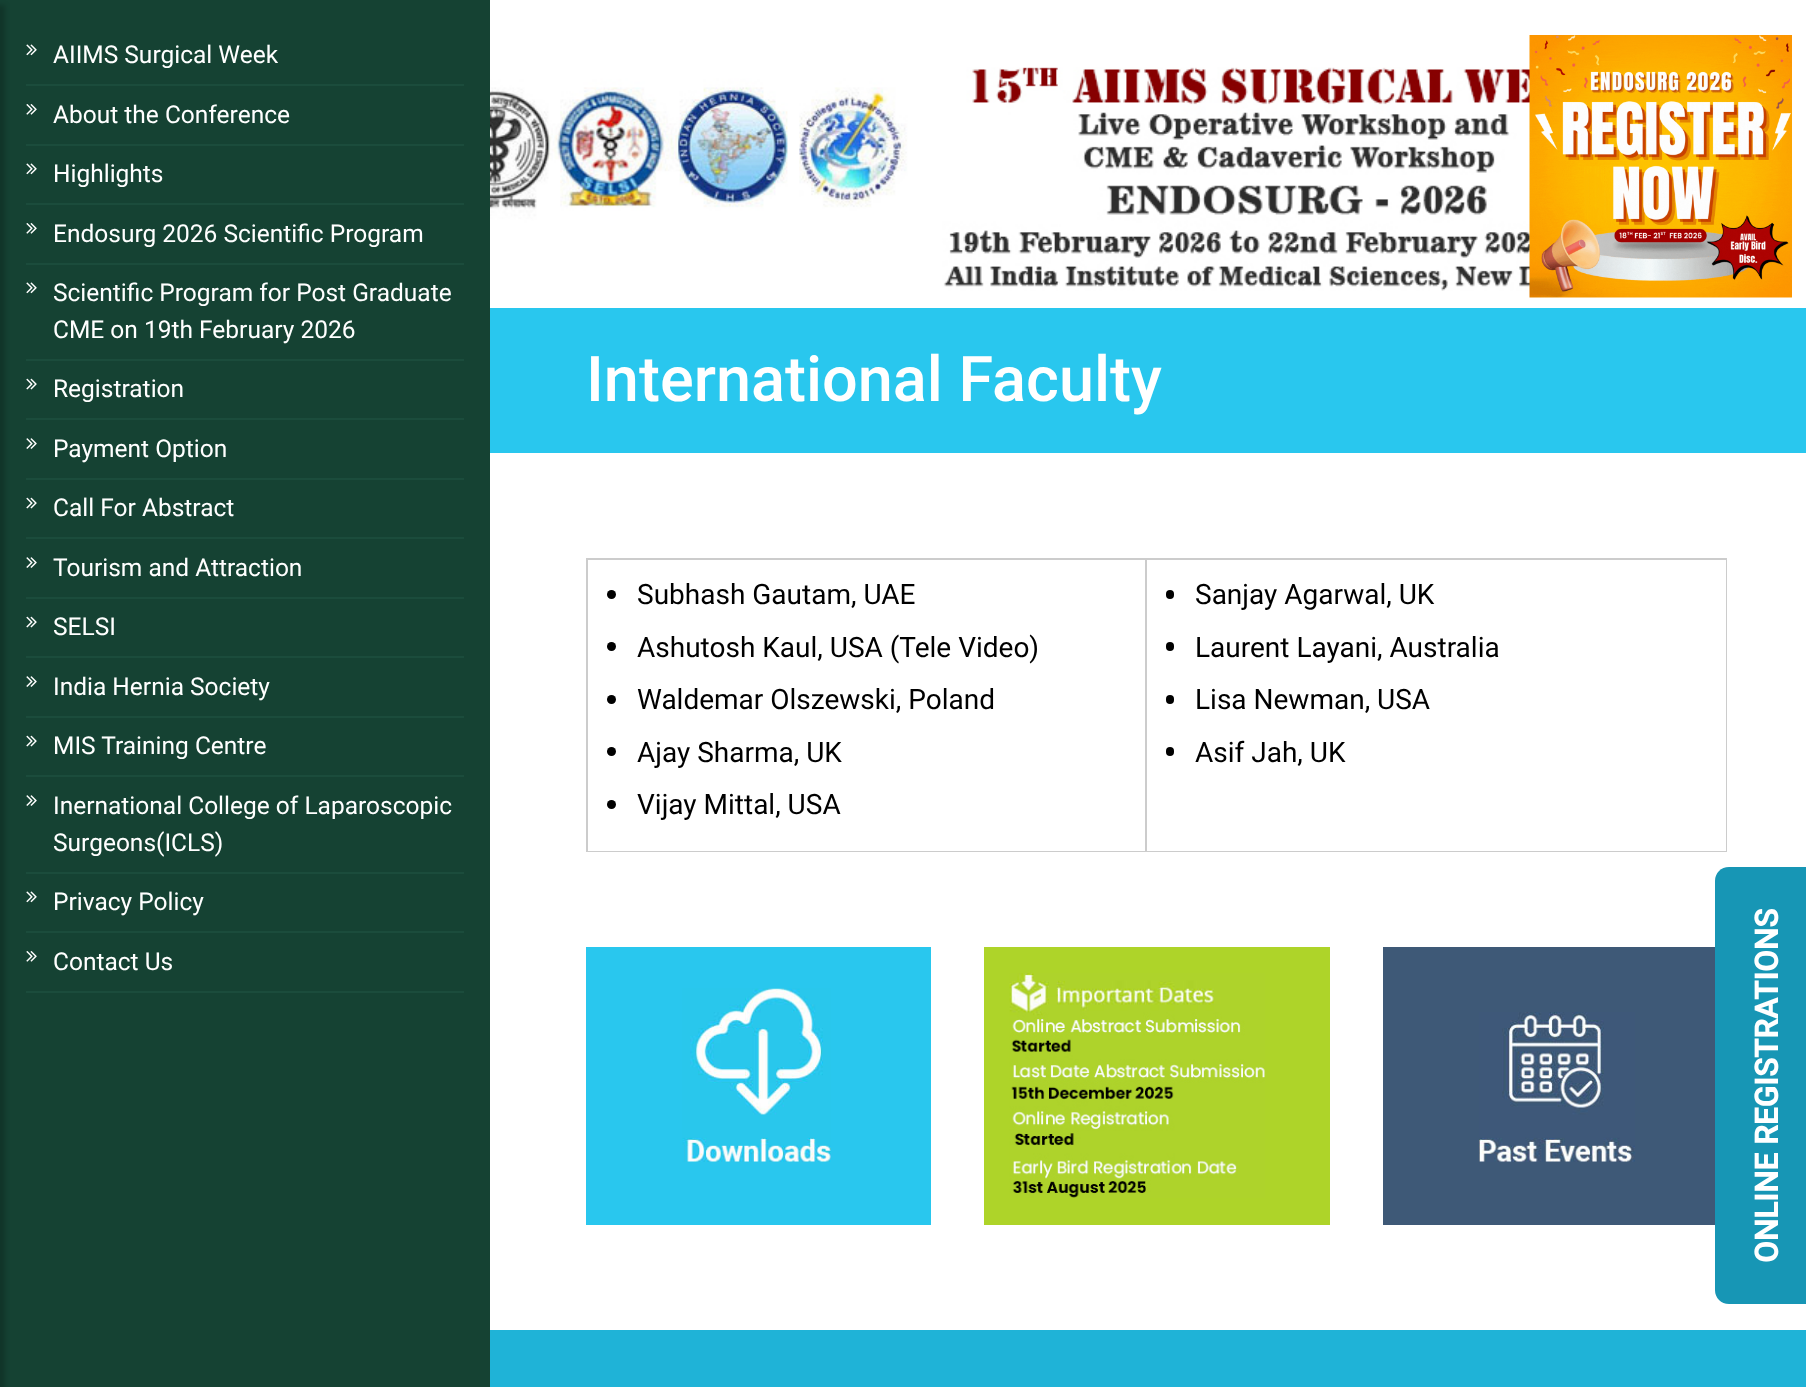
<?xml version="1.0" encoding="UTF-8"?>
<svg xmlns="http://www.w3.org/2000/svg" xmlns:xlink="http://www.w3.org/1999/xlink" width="1806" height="1387">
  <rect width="100%" height="100%" fill="#ffffff" />
  <rect width="490" height="1387" fill="#154233" />
  <rect x="-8" y="5" width="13" height="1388" fill="#000000" fill-opacity="0.2" filter="blur(2.5px)" />
  <rect x="26" y="84" width="438" height="2" fill="#1b4c3c" />
  <image x="26" y="44" width="11" height="12" xlink:href="image1.png" />
  <rect x="26" y="144" width="438" height="2" fill="#1b4c3c" />
  <image x="26" y="104" width="11" height="11" xlink:href="image2.png" />
  <rect x="26" y="203" width="438" height="2" fill="#1b4c3c" />
  <image x="26" y="163" width="11" height="12" xlink:href="image1.png" />
  <rect x="26" y="263" width="438" height="2" fill="#1b4c3c" />
  <image x="26" y="223" width="11" height="11" xlink:href="image2.png" />
  <rect x="26" y="359" width="438" height="2" fill="#1b4c3c" />
  <image x="26" y="282" width="11" height="12" xlink:href="image1.png" />
  <rect x="26" y="418" width="438" height="2" fill="#1b4c3c" />
  <image x="26" y="378" width="11" height="12" xlink:href="image3.png" />
  <rect x="26" y="478" width="438" height="2" fill="#1b4c3c" />
  <image x="26" y="438" width="11" height="11" xlink:href="image4.png" />
  <rect x="26" y="537" width="438" height="2" fill="#1b4c3c" />
  <image x="26" y="497" width="11" height="12" xlink:href="image3.png" />
  <rect x="26" y="597" width="438" height="2" fill="#1b4c3c" />
  <image x="26" y="557" width="11" height="11" xlink:href="image4.png" />
  <rect x="26" y="656" width="438" height="2" fill="#1b4c3c" />
  <image x="26" y="616" width="11" height="12" xlink:href="image3.png" />
  <rect x="26" y="716" width="438" height="2" fill="#1b4c3c" />
  <image x="26" y="676" width="11" height="11" xlink:href="image4.png" />
  <rect x="26" y="775" width="438" height="2" fill="#1b4c3c" />
  <image x="26" y="735" width="11" height="12" xlink:href="image3.png" />
  <rect x="26" y="872" width="438" height="2" fill="#1b4c3c" />
  <image x="26" y="795" width="11" height="11" xlink:href="image4.png" />
  <rect x="26" y="931" width="438" height="2" fill="#1b4c3c" />
  <image x="26" y="891" width="11" height="12" xlink:href="image1.png" />
  <rect x="26" y="991" width="438" height="2" fill="#1b4c3c" />
  <image x="26" y="951" width="11" height="11" xlink:href="image2.png" />
  <image x="490" y="67" width="1040" height="224" xlink:href="image5.png" />
  <image x="1529" y="35" width="263" height="263" xlink:href="image6.png" />
  <rect x="490" y="308" width="1316" height="145" fill="#29c7ee" />
  <rect x="586" y="558" width="1141" height="2" fill="#cccccc" />
  <rect x="1726" y="558" width="1" height="294" fill="#cccccc" />
  <rect x="586" y="851" width="1141" height="1" fill="#cccccc" />
  <rect x="586" y="558" width="2" height="294" fill="#cccccc" />
  <circle cx="611.5" cy="594.5" r="4.5" fill="#000000" />
  <circle cx="611.5" cy="646.5" r="4.5" fill="#000000" />
  <circle cx="611.5" cy="699.5" r="4.5" fill="#000000" />
  <circle cx="611.5" cy="751.5" r="4.5" fill="#000000" />
  <circle cx="611.5" cy="804.5" r="4.5" fill="#000000" />
  <rect x="1145" y="558" width="2" height="294" fill="#cccccc" />
  <rect x="1166" y="590" width="8" height="9" rx="4" fill="#000000" />
  <rect x="1166" y="642" width="8" height="9" rx="4" fill="#000000" />
  <rect x="1166" y="695" width="8" height="9" rx="4" fill="#000000" />
  <rect x="1166" y="747" width="8" height="9" rx="4" fill="#000000" />
  <rect x="586" y="947" width="345" height="278" fill="#29c7ee" />
  <image x="682" y="988" width="149" height="174" xlink:href="image7.png" />
  <rect x="984" y="947" width="346" height="278" fill="#aed429" />
  <image x="1009" y="973" width="256" height="225" xlink:href="image8.png" />
  <rect x="1383" y="947" width="332" height="278" fill="#3e5977" />
  <image x="1479" y="1012" width="156" height="150" xlink:href="image9.png" />
  <path d="M 1715 1290 v -409 c 0 -8 6 -14 14 -14 h 77 c 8 0 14 6 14 14 v 409 c 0 8 -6 14 -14 14 h -77 c -8 0 -14 -6 -14 -14 z" fill="#1796b5" />
  <rect x="490" y="1330" width="1316" height="57" fill="#1fb3d7" />
  <text x="53" y="63" style="font-family: Roboto; font-size: 24.5px; fill: #ffffff">AIIMS Surgical Week</text>
  <text x="53" y="123" style="font-family: Roboto; font-size: 24.5px; fill: #ffffff">About the Conference</text>
  <text x="53" y="182" style="font-family: Roboto; font-size: 24.5px; fill: #ffffff">Highlights</text>
  <text x="53" y="242" style="font-family: Roboto; font-size: 24.5px; fill: #ffffff">Endosurg 2026 Scientific Program</text>
  <text x="53" y="301" style="font-family: Roboto; font-size: 24.5px; fill: #ffffff">Scientific Program for Post Graduate</text>
  <text x="53" y="338" style="font-family: Roboto; font-size: 24.5px; fill: #ffffff">CME on 19th February 2026</text>
  <text x="53" y="397" style="font-family: Roboto; font-size: 24.5px; fill: #ffffff">Registration</text>
  <text x="53" y="457" style="font-family: Roboto; font-size: 24.5px; fill: #ffffff">Payment Option</text>
  <text x="53" y="516" style="font-family: Roboto; font-size: 24.5px; fill: #ffffff">Call For Abstract</text>
  <text x="53" y="576" style="font-family: Roboto; font-size: 24.5px; fill: #ffffff">Tourism and Attraction</text>
  <text x="53" y="635" style="font-family: Roboto; font-size: 24.5px; fill: #ffffff">SELSI</text>
  <text x="53" y="695" style="font-family: Roboto; font-size: 24.5px; fill: #ffffff">India Hernia Society</text>
  <text x="53" y="754" style="font-family: Roboto; font-size: 24.5px; fill: #ffffff">MIS Training Centre</text>
  <text x="53" y="814" style="font-family: Roboto; font-size: 24.5px; fill: #ffffff">Inernational College of Laparoscopic</text>
  <text x="53" y="851" style="font-family: Roboto; font-size: 24.5px; fill: #ffffff">Surgeons(ICLS)</text>
  <text x="53" y="910" style="font-family: Roboto; font-size: 24.5px; fill: #ffffff">Privacy Policy</text>
  <text x="53" y="970" style="font-family: Roboto; font-size: 24.5px; fill: #ffffff">Contact Us</text>
  <text x="586" y="401" style="font-family: Roboto; font-size: 63px; font-weight: 500; fill: #ffffff">International Faculty</text>
  <text x="637" y="604" style="font-family: Roboto; font-size: 28px; fill: #000000">Subhash Gautam, UAE</text>
  <text x="637" y="657" style="font-family: Roboto; font-size: 28px; fill: #000000">Ashutosh Kaul, USA (Tele Video)</text>
  <text x="637" y="709" style="font-family: Roboto; font-size: 28px; fill: #000000">Waldemar Olszewski, Poland</text>
  <text x="637" y="762" style="font-family: Roboto; font-size: 28px; fill: #000000">Ajay Sharma, UK</text>
  <text x="637" y="814" style="font-family: Roboto; font-size: 28px; fill: #000000">Vijay Mittal, USA</text>
  <text x="1195" y="604" style="font-family: Roboto; font-size: 28px; fill: #000000">Sanjay Agarwal, UK</text>
  <text x="1195" y="657" style="font-family: Roboto; font-size: 28px; fill: #000000">Laurent Layani, Australia</text>
  <text x="1195" y="709" style="font-family: Roboto; font-size: 28px; fill: #000000">Lisa Newman, USA</text>
  <text x="1195" y="762" style="font-family: Roboto; font-size: 28px; fill: #000000">Asif Jah, UK</text>
  <text x="1778" y="1263" transform="rotate(-90 1778 1263)" style="font-family: Roboto; font-size: 31.5px; font-weight: bold; fill: #ffffff">ONLINE REGISTRATIONS</text>
</svg>
